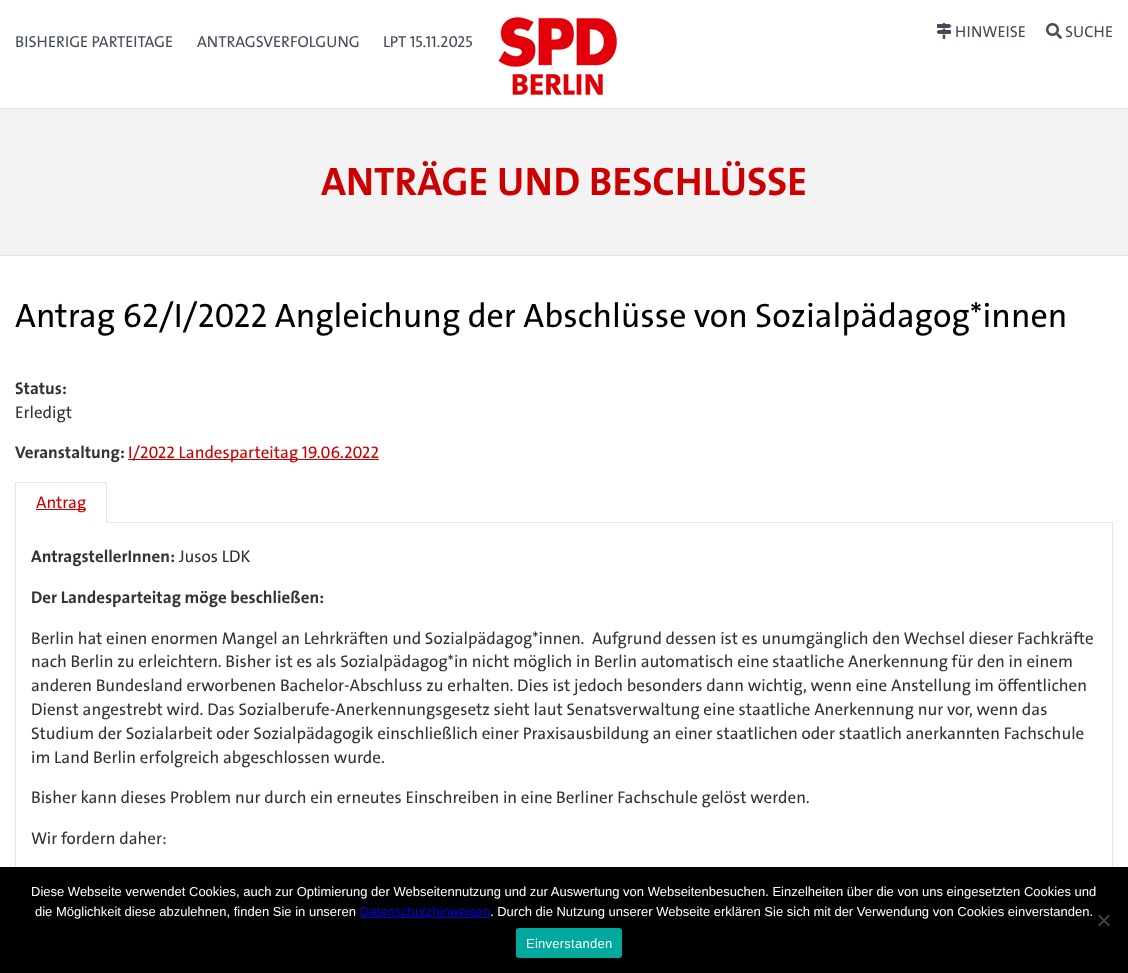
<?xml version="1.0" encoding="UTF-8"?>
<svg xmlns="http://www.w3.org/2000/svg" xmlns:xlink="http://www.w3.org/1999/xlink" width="1128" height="973">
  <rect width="100%" height="100%" fill="#ffffff" />
  <rect y="109" width="1128" height="146" fill="#f3f3f3" />
  <rect y="108" width="1128" height="1" fill="#e6e6e6" />
  <image x="498" y="17" width="119" height="78" xlink:href="image1.png" />
  <image x="936" y="23" width="16" height="16" xlink:href="image2.png" />
  <image x="1046" y="23" width="16" height="16" xlink:href="image3.png" />
  <rect y="255" width="1128" height="1" fill="#e5e5e5" />
  <rect x="128" y="459" width="251" height="1" fill="#cc0000" />
  <rect x="15.5" y="522.5" width="1097" height="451" fill="none" stroke="#e6e6e6" />
  <rect x="15" y="522" width="92" height="1" fill="#ffffff" />
  <path d="M 15 482 h 92 l -1 1 h -90 z" fill="#e6e6e6" />
  <path d="M 107 482 v 41 h -1 v -40 z" fill="#000000" fill-opacity="0.1" />
  <path d="M 15 523 v -41 l 1 1 v 40 z" fill="#000000" fill-opacity="0.1" />
  <rect x="36" y="509" width="50" height="1" fill="#cc0000" />
  <rect y="867" width="1128" height="106" fill="#000000" />
  <rect x="360" y="917" width="130" height="1" fill="#0000ee" />
  <path d="M 1108.5 914.5 l 1.5 1.5 l -10.5 10.5 l -1.5 -1.5 z" fill="#404040" />
  <path d="M 1098 916 l 1.5 -1.5 l 10.5 10.5 l -1.5 1.5 z" fill="#404040" />
  <rect x="516" y="928" width="106" height="30" rx="3" fill="#00a99d" />
  <text x="955" y="37" style="font-family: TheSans; font-size: 16px; font-weight: 500; fill: #454c59">HINWEISE</text>
  <text x="1065" y="37" style="font-family: TheSans; font-size: 16px; font-weight: 500; fill: #454c59">SUCHE</text>
  <text x="15" y="47" style="font-family: TheSans; font-size: 16px; font-weight: 500; fill: #454c59">BISHERIGE PARTEITAGE</text>
  <text x="197" y="47" style="font-family: TheSans; font-size: 16px; font-weight: 500; fill: #454c59">ANTRAGSVERFOLGUNG</text>
  <text x="383" y="47" style="font-family: TheSans; font-size: 16px; font-weight: 500; fill: #454c59">LPT 15.11.2025</text>
  <text x="321" y="195" style="font-family: TheSans; font-size: 40px; font-weight: bold; fill: #cc0000">ANTRÄGE UND BESCHLÜSSE</text>
  <text x="15" y="327" style="font-family: TheSans; font-size: 34px; font-weight: 500; fill: #000000">Antrag 62/I/2022 Angleichung der Abschlüsse von Sozialpädagog*innen</text>
  <text x="15" y="394" style="font-family: TheSans; font-size: 17px; font-weight: bold; fill: #333333">Status:</text>
  <text x="15" y="418" style="font-family: TheSans; font-size: 17px; font-weight: 500; fill: #333333">Erledigt</text>
  <text x="15" y="458" style="font-family: TheSans; font-size: 17px; font-weight: bold; fill: #333333">Veranstaltung:</text>
  <text x="128" y="458" style="font-family: TheSans; font-size: 17px; font-weight: 500; fill: #cc0000">I/2022 Landesparteitag 19.06.2022</text>
  <text x="36" y="508" style="font-family: TheSans; font-size: 17px; font-weight: 500; fill: #cc0000">Antrag</text>
  <text x="31" y="562" style="font-family: TheSans; font-size: 17px; font-weight: bold; fill: #333333">AntragstellerInnen:</text>
  <text x="179" y="562" style="font-family: TheSans; font-size: 17px; font-weight: 500; fill: #333333">Jusos LDK</text>
  <text x="31" y="603" style="font-family: TheSans; font-size: 17px; font-weight: bold; fill: #333333">Der Landesparteitag möge beschließen:</text>
  <text x="31" y="644" style="font-family: TheSans; font-size: 17px; font-weight: 500; fill: #333333" xml:space="preserve">Berlin hat einen enormen Mangel an Lehrkräften und Sozialpädagog*innen.  Aufgrund dessen ist es unumgänglich den Wechsel dieser Fachkräfte</text>
  <text x="31" y="667" style="font-family: TheSans; font-size: 17px; font-weight: 500; fill: #333333">nach Berlin zu erleichtern. Bisher ist es als Sozialpädagog*in nicht möglich in Berlin automatisch eine staatliche Anerkennung für den in einem</text>
  <text x="31" y="691" style="font-family: TheSans; font-size: 17px; font-weight: 500; fill: #333333">anderen Bundesland erworbenen Bachelor-Abschluss zu erhalten. Dies ist jedoch besonders dann wichtig, wenn eine Anstellung im öffentlichen</text>
  <text x="31" y="715" style="font-family: TheSans; font-size: 17px; font-weight: 500; fill: #333333">Dienst angestrebt wird. Das Sozialberufe-Anerkennungsgesetz sieht laut Senatsverwaltung eine staatliche Anerkennung nur vor, wenn das</text>
  <text x="31" y="739" style="font-family: TheSans; font-size: 17px; font-weight: 500; fill: #333333">Studium der Sozialarbeit oder Sozialpädagogik einschließlich einer Praxisausbildung an einer staatlichen oder staatlich anerkannten Fachschule</text>
  <text x="31" y="763" style="font-family: TheSans; font-size: 17px; font-weight: 500; fill: #333333">im Land Berlin erfolgreich abgeschlossen wurde.</text>
  <text x="31" y="803" style="font-family: TheSans; font-size: 17px; font-weight: 500; fill: #333333">Bisher kann dieses Problem nur durch ein erneutes Einschreiben in eine Berliner Fachschule gelöst werden.</text>
  <text x="31" y="844" style="font-family: TheSans; font-size: 17px; font-weight: 500; fill: #333333">Wir fordern daher:</text>
  <text x="31" y="896" style="font-family: Liberation Sans; font-size: 13px; fill: #ffffff">Diese Webseite verwendet Cookies, auch zur Optimierung der Webseitennutzung und zur Auswertung von Webseitenbesuchen. Einzelheiten über die von uns eingesetzten Cookies und</text>
  <text x="35" y="916" style="font-family: Liberation Sans; font-size: 13px; fill: #ffffff">die Möglichkeit diese abzulehnen, finden Sie in unseren</text>
  <text x="360" y="916" style="font-family: Liberation Sans; font-size: 13px; fill: #0000ee">Datenschutzhinweisen</text>
  <text x="490" y="916" style="font-family: Liberation Sans; font-size: 13px; fill: #ffffff">. Durch die Nutzung unserer Webseite erklären Sie sich mit der Verwendung von Cookies einverstanden.</text>
  <text x="526" y="948" style="font-family: Liberation Sans; font-size: 13px; letter-spacing: 0.25px; fill: #ffffff">Einverstanden</text>
</svg>
